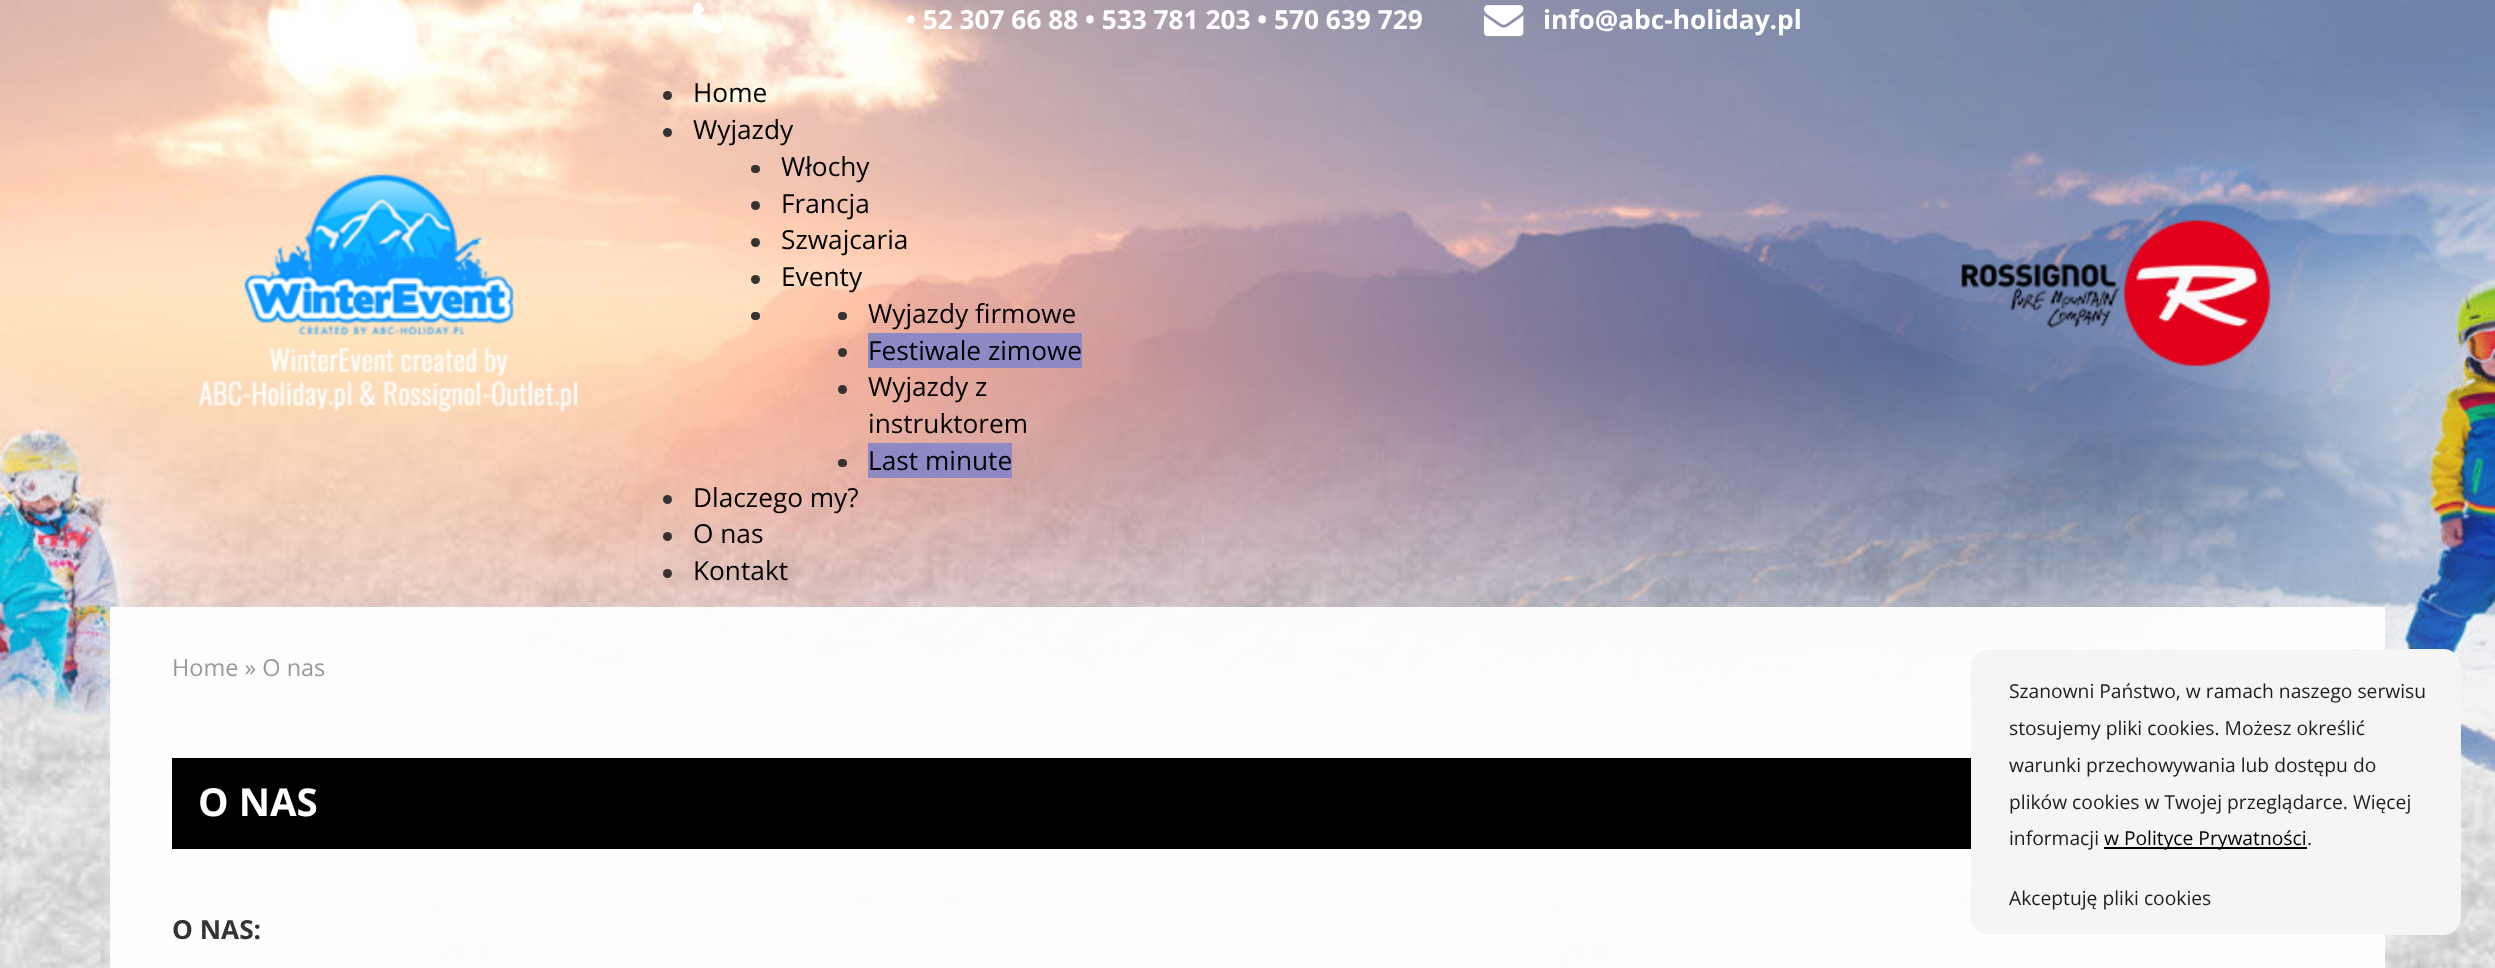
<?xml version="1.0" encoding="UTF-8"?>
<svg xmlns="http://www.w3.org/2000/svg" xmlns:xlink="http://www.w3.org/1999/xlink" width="2495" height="968">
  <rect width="100%" height="100%" fill="#ffffff" />
  <image x="0" y="0" width="2495" height="968" xlink:href="image1.png" />
  <image x="199" y="174" width="379" height="238" xlink:href="image2.png" />
  <image x="693" y="2" width="31" height="32" xlink:href="image3.png" />
  <image x="1484" y="5" width="40" height="32" xlink:href="image4.png" />
  <circle cx="667.5" cy="95.5" r="4.5" fill="#333333" />
  <circle cx="667.5" cy="132.5" r="4.5" fill="#333333" />
  <rect x="751" y="165" width="9" height="8" rx="4" fill="#333333" />
  <circle cx="755.5" cy="205.5" r="4.5" fill="#333333" />
  <circle cx="755.5" cy="242.5" r="4.5" fill="#333333" />
  <circle cx="755.5" cy="279.5" r="4.5" fill="#333333" />
  <rect x="751" y="312" width="9" height="8" rx="4" fill="#333333" />
  <rect x="838" y="312" width="9" height="8" rx="4" fill="#333333" />
  <circle cx="842.5" cy="352.5" r="4.5" fill="#333333" />
  <rect x="868" y="333" width="214" height="35" fill="#8e88c5" />
  <circle cx="842.5" cy="389.5" r="4.5" fill="#333333" />
  <rect x="838" y="459" width="9" height="8" rx="4" fill="#333333" />
  <rect x="868" y="443" width="144" height="35" fill="#8e88c5" />
  <circle cx="667.5" cy="499.5" r="4.5" fill="#333333" />
  <circle cx="667.5" cy="536.5" r="4.5" fill="#333333" />
  <circle cx="667.5" cy="573.5" r="4.5" fill="#333333" />
  <image x="1961" y="220" width="310" height="147" xlink:href="image5.png" />
  <rect x="110" y="607" width="2275" height="361" fill="#ffffff" fill-opacity="0.95" />
  <rect x="172" y="758" width="1799" height="91" fill="#000000" />
  <rect x="1971" y="649" width="490" height="286" rx="18" fill="#f4f5f4" />
  <rect x="2104" y="847" width="203" height="2" fill="#000000" />
  <text x="906" y="29" style="font-family: Open Sans; font-size: 26.25px; font-weight: bold; fill: #ffffff">• 52 307 66 88 • 533 781 203 • 570 639 729</text>
  <text x="1543" y="29" style="font-family: Open Sans; font-size: 26.25px; font-weight: bold; fill: #ffffff">info@abc-holiday.pl</text>
  <text x="693" y="102" style="font-family: Open Sans; font-size: 26.25px; fill: #000000">Home</text>
  <text x="693" y="139" style="font-family: Open Sans; font-size: 26.25px; fill: #000000">Wyjazdy</text>
  <text x="781" y="176" style="font-family: Open Sans; font-size: 26.25px; fill: #000000">Włochy</text>
  <text x="781" y="213" style="font-family: Open Sans; font-size: 26.25px; fill: #000000">Francja</text>
  <text x="781" y="249" style="font-family: Open Sans; font-size: 26.25px; fill: #000000">Szwajcaria</text>
  <text x="781" y="286" style="font-family: Open Sans; font-size: 26.25px; fill: #000000">Eventy</text>
  <text x="868" y="323" style="font-family: Open Sans; font-size: 26.25px; fill: #000000">Wyjazdy firmowe</text>
  <text x="868" y="360" style="font-family: Open Sans; font-size: 26.25px; fill: #000000">Festiwale zimowe</text>
  <text x="868" y="396" style="font-family: Open Sans; font-size: 26.25px; fill: #000000">Wyjazdy z</text>
  <text x="868" y="433" style="font-family: Open Sans; font-size: 26.25px; fill: #000000">instruktorem</text>
  <text x="868" y="470" style="font-family: Open Sans; font-size: 26.25px; fill: #000000">Last minute</text>
  <text x="693" y="507" style="font-family: Open Sans; font-size: 26.25px; fill: #000000">Dlaczego my?</text>
  <text x="693" y="543" style="font-family: Open Sans; font-size: 26.25px; fill: #000000">O nas</text>
  <text x="693" y="580" style="font-family: Open Sans; font-size: 26.25px; fill: #000000">Kontakt</text>
  <text x="172" y="676" style="font-family: Open Sans; font-size: 23.5px; fill: #999999">Home » O nas</text>
  <text x="198" y="816" style="font-family: Open Sans; font-size: 38.5px; font-weight: bold; fill: #ffffff">O NAS</text>
  <text x="172" y="939" style="font-family: Open Sans; font-size: 26.25px; font-weight: bold; fill: #333333">O NAS:</text>
  <text x="2009" y="698" style="font-family: Open Sans; font-size: 19.25px; fill: #1d1d1d">Szanowni Państwo, w ramach naszego serwisu</text>
  <text x="2009" y="735" style="font-family: Open Sans; font-size: 19.25px; fill: #1d1d1d">stosujemy pliki cookies. Możesz określić</text>
  <text x="2009" y="772" style="font-family: Open Sans; font-size: 19.25px; fill: #1d1d1d">warunki przechowywania lub dostępu do</text>
  <text x="2009" y="809" style="font-family: Open Sans; font-size: 19.25px; fill: #1d1d1d">plików cookies w Twojej przeglądarce. Więcej</text>
  <text x="2009" y="845" style="font-family: Open Sans; font-size: 19.25px; fill: #1d1d1d">informacji</text>
  <text x="2104" y="845" style="font-family: Open Sans; font-size: 19.25px; fill: #000000">w Polityce Prywatności</text>
  <text x="2307" y="845" style="font-family: Open Sans; font-size: 19.25px; fill: #1d1d1d">.</text>
  <text x="2009" y="905" style="font-family: Open Sans; font-size: 19.25px; fill: #1d1d1d">Akceptuję pliki cookies</text>
</svg>
